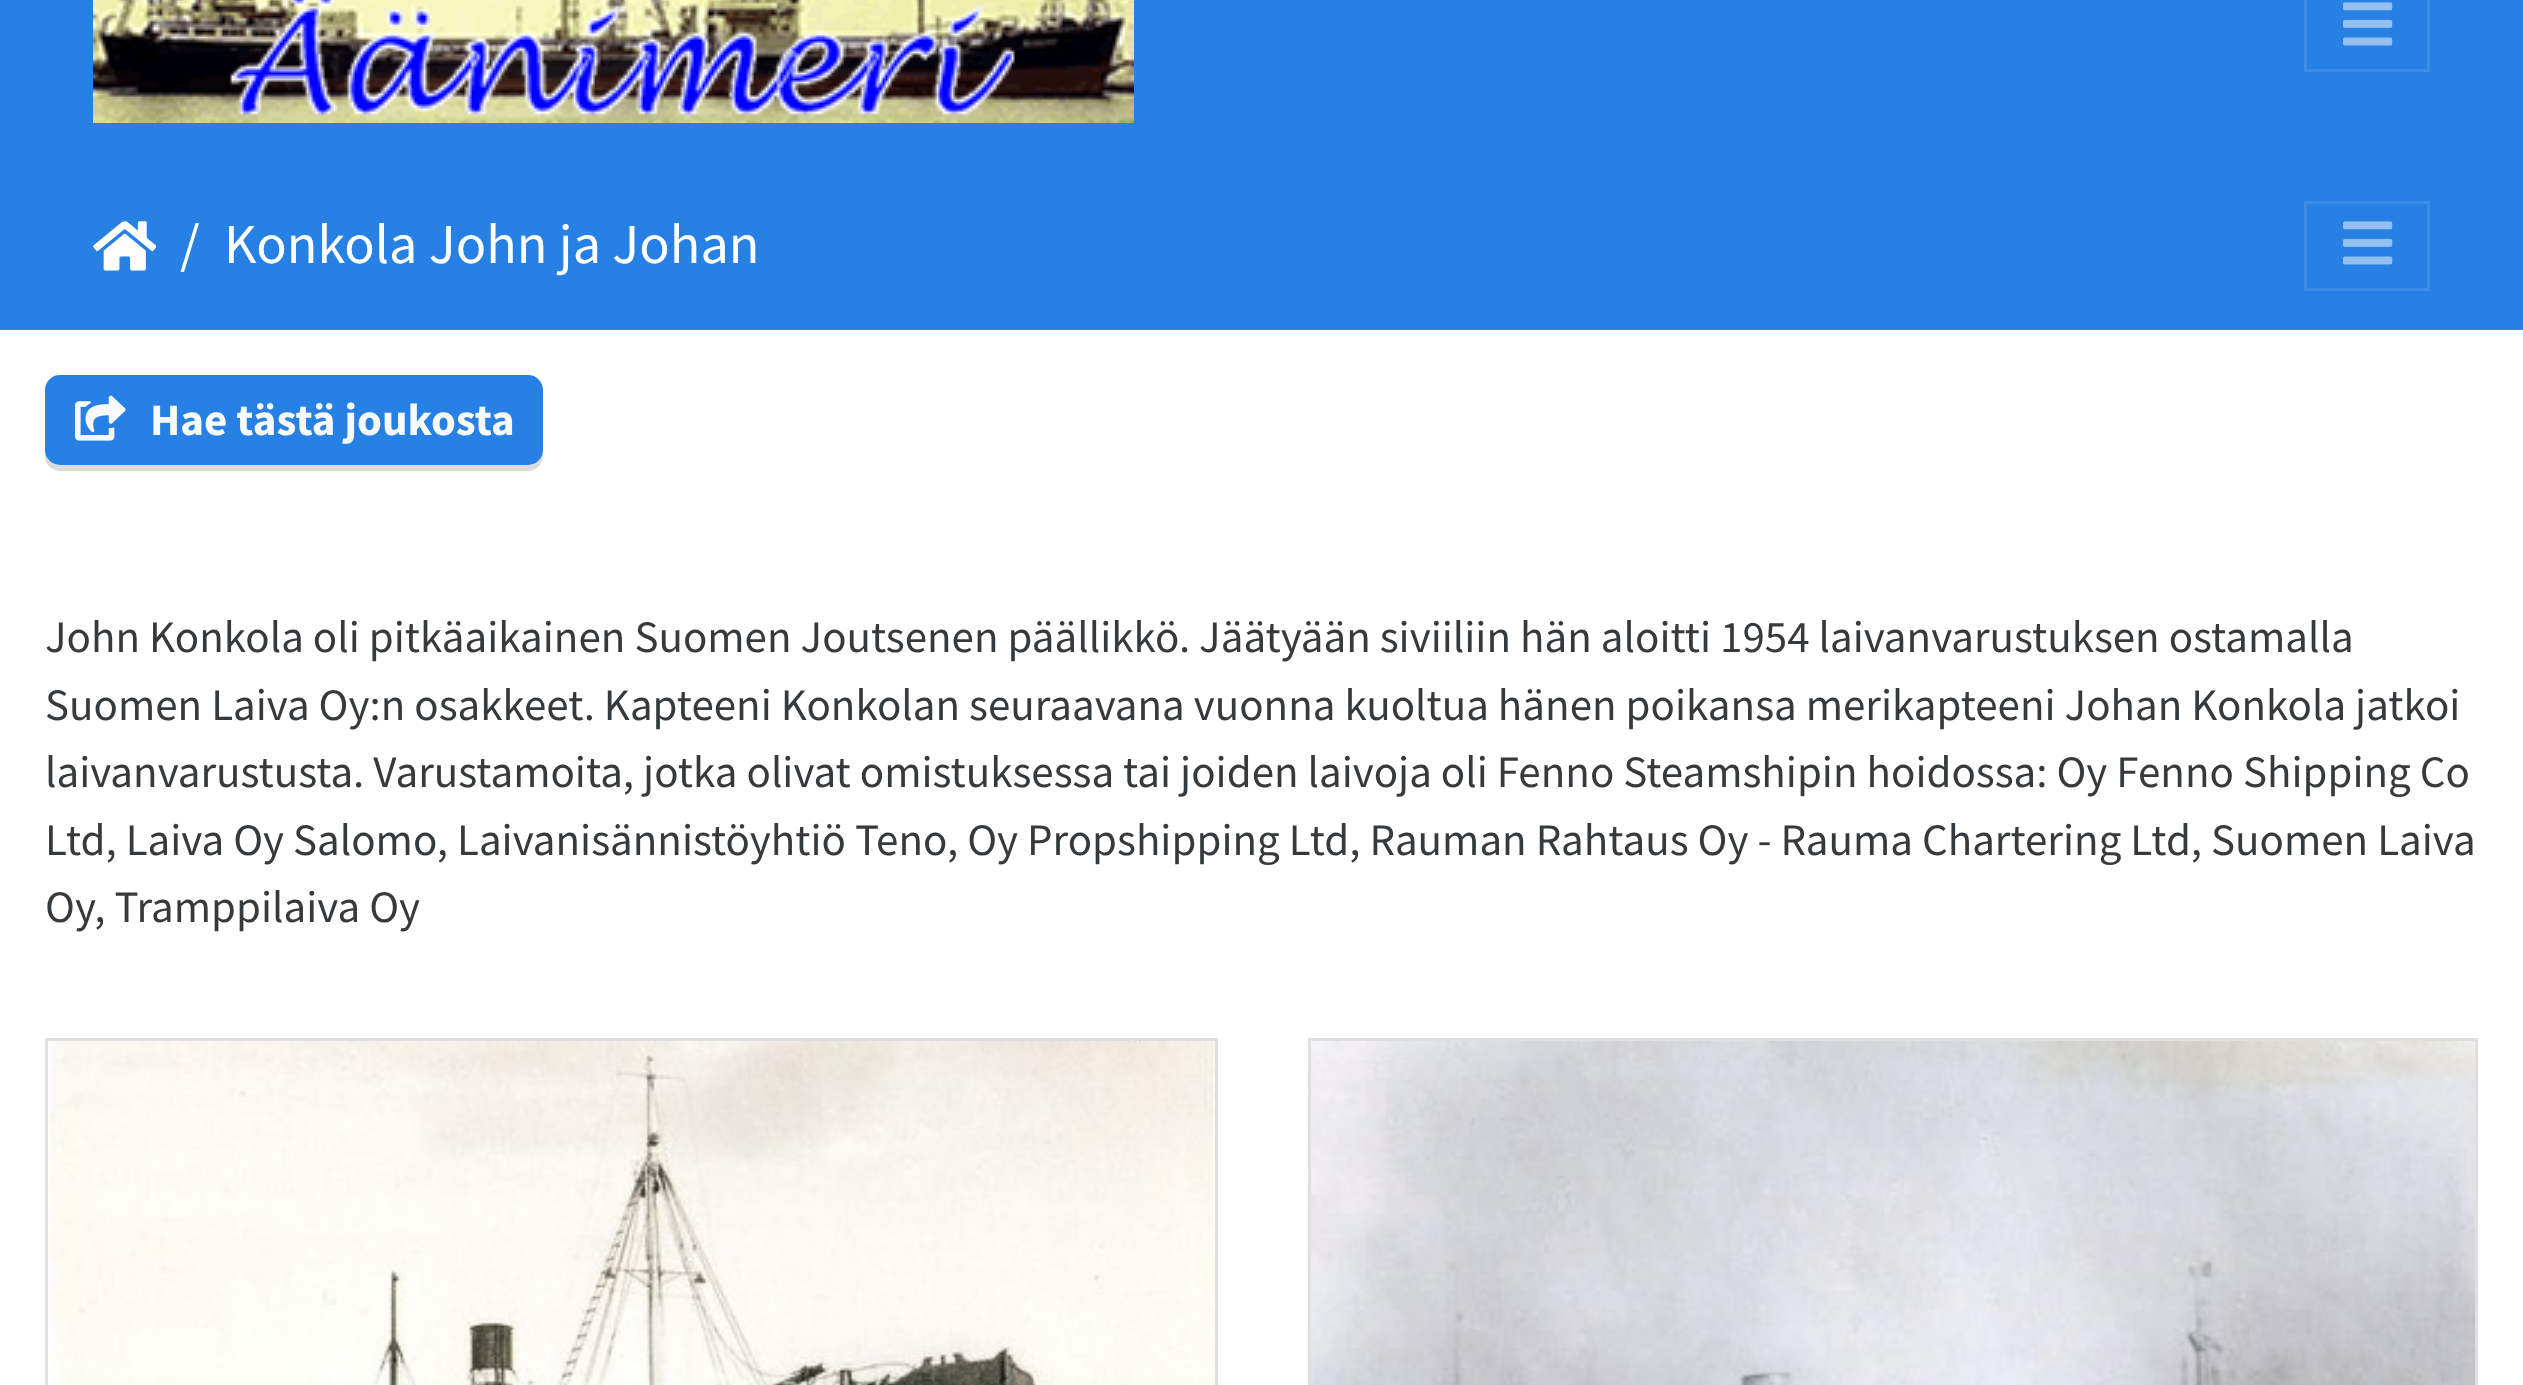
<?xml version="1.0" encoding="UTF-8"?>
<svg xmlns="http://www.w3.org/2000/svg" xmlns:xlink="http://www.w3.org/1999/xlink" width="2523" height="1385">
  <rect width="100%" height="100%" fill="#ffffff" />
  <rect width="2523" height="330" fill="#2780e3" />
  <image x="93" y="0" width="1041" height="123" xlink:href="image1.png" />
  <rect x="2305.5" y="-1.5" width="123" height="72" fill="none" stroke="#3d8de6" stroke-width="3" />
  <image x="2343" y="2" width="50" height="44" xlink:href="image2.png" />
  <image x="93" y="221" width="63" height="50" xlink:href="image3.png" />
  <rect x="2305.5" y="202.5" width="123" height="87" fill="none" stroke="#3d8de6" stroke-width="3" />
  <image x="2343" y="221" width="50" height="44" xlink:href="image2.png" />
  <path d="M 45 450 v 6 c 0 8 7 15 15 15 h 468 c 8 0 15 -7 15 -15 v -6 c 0 8 -7 15 -15 15 h -468 c -8 0 -15 -7 -15 -15 z" fill="#dbdbdb" />
  <rect x="45" y="375" width="498" height="90" rx="15" fill="#2780e3" />
  <image x="75" y="395" width="51" height="46" xlink:href="image4.png" />
  <rect x="46.5" y="1039.5" width="1170" height="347" fill="none" stroke="#dfdfdf" stroke-width="3" />
  <image x="48" y="1041" width="1167" height="344" xlink:href="image5.png" />
  <rect x="1309.5" y="1039.5" width="1167" height="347" fill="none" stroke="#dfdfdf" stroke-width="3" />
  <image x="1311" y="1041" width="1164" height="344" xlink:href="image6.png" />
  <text x="180" y="263" style="font-family: Source Sans Pro; font-size: 56.25px; fill: #ffffff">/</text>
  <text x="224" y="263" style="font-family: Source Sans Pro; font-size: 56.25px; fill: #ffffff">Konkola John ja Johan</text>
  <text x="150" y="435" style="font-family: Source Sans Pro; font-size: 45px; font-weight: bold; fill: #f8f9fa">Hae tästä joukosta</text>
  <text x="45" y="652" style="font-family: Source Sans Pro; font-size: 45px; fill: #373a3c">John Konkola oli pitkäaikainen Suomen Joutsenen päällikkö. Jäätyään siviiliin hän aloitti 1954 laivanvarustuksen ostamalla</text>
  <text x="45" y="720" style="font-family: Source Sans Pro; font-size: 45px; fill: #373a3c">Suomen Laiva Oy:n osakkeet. Kapteeni Konkolan seuraavana vuonna kuoltua hänen poikansa merikapteeni Johan Konkola jatkoi</text>
  <text x="45" y="787" style="font-family: Source Sans Pro; font-size: 45px; fill: #373a3c">laivanvarustusta. Varustamoita, jotka olivat omistuksessa tai joiden laivoja oli Fenno Steamshipin hoidossa: Oy Fenno Shipping Co</text>
  <text x="45" y="855" style="font-family: Source Sans Pro; font-size: 45px; fill: #373a3c">Ltd, Laiva Oy Salomo, Laivanisännistöyhtiö Teno, Oy Propshipping Ltd, Rauman Rahtaus Oy - Rauma Chartering Ltd, Suomen Laiva</text>
  <text x="45" y="922" style="font-family: Source Sans Pro; font-size: 45px; fill: #373a3c">Oy, Tramppilaiva Oy</text>
</svg>
